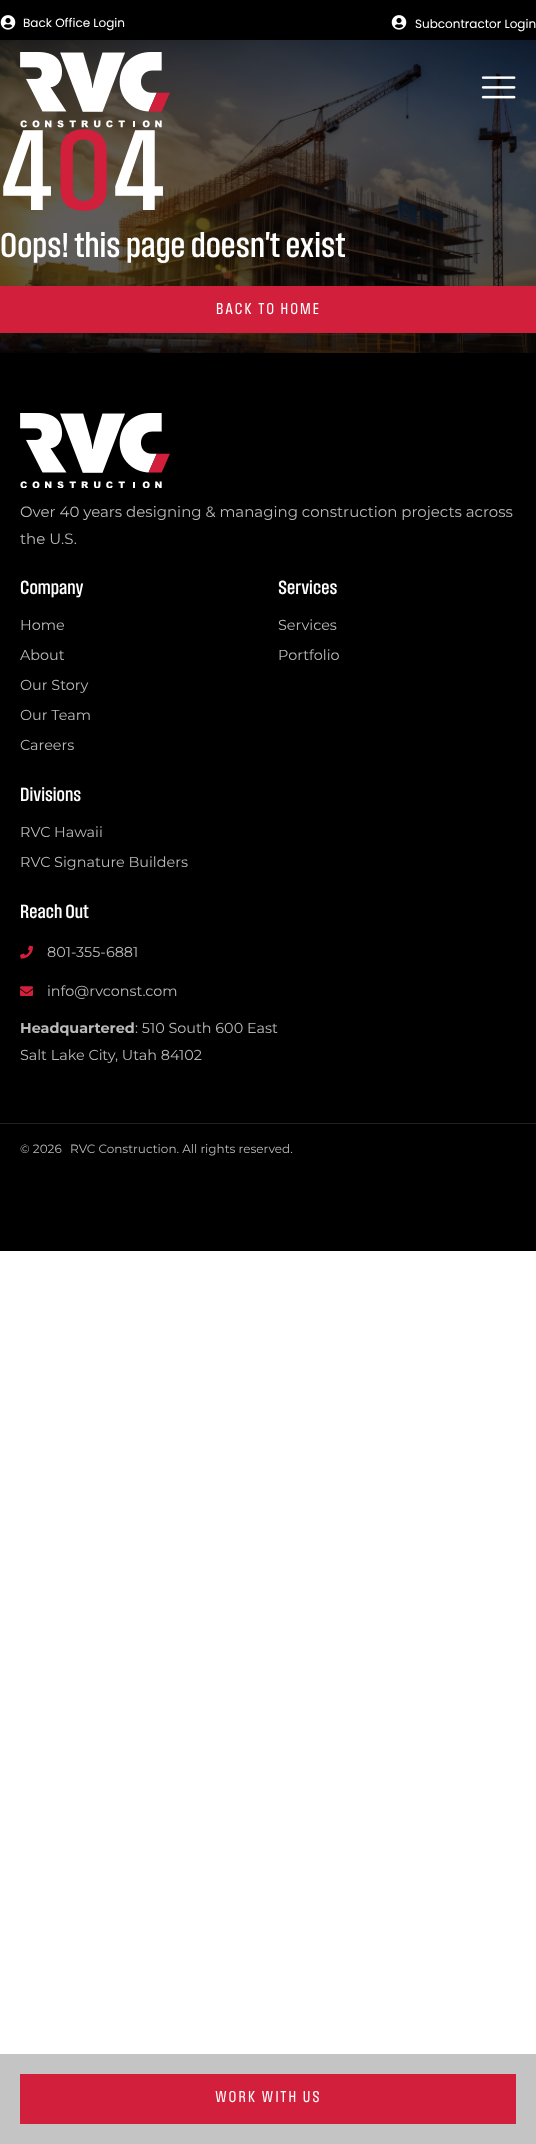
<?xml version="1.0" encoding="UTF-8"?>
<svg xmlns="http://www.w3.org/2000/svg" xmlns:xlink="http://www.w3.org/1999/xlink" width="536" height="2144">
  <rect width="100%" height="100%" fill="#ffffff" />
  <rect width="536" height="40" fill="#000000" />
  <image x="0" y="15" width="16" height="15" xlink:href="image1.png" />
  <image x="391" y="15" width="16" height="15" xlink:href="image1.png" />
  <image x="0" y="40" width="536" height="313" xlink:href="image4.png" />
  <image x="20" y="52" width="150" height="76" xlink:href="image2.png" />
  <image x="481" y="76" width="35" height="23" xlink:href="image3.png" />
  <rect x="10" y="2064" width="516" height="70" fill="none" stroke="#c4c4c4" stroke-width="20" />
  <rect x="20" y="2074" width="496" height="50" fill="#d21f3c" />
  <rect y="286" width="536" height="47" fill="#d21f3c" />
  <rect y="353" width="536" height="770" fill="#000000" />
  <image x="20" y="413" width="150" height="75" xlink:href="image5.png" />
  <image x="20" y="945" width="13" height="14" xlink:href="image6.png" />
  <image x="20" y="986" width="13" height="10" xlink:href="image7.png" />
  <rect y="1124" width="536" height="127" fill="#000000" />
  <rect y="1123" width="536" height="1" fill="#212121" />
  <text x="23" y="27" style="font-family: Poppins; font-size: 12px; fill: #ffffff">Back Office Login</text>
  <text x="415" y="28" style="font-family: Poppins; font-size: 12px; fill: #ffffff">Subcontractor Login</text>
  <text x="215" y="2102" style="font-family: 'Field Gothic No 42'; font-size: 16.5px; letter-spacing: 2px; fill: #ffffff">WORK WITH US</text>
  <text x="0" y="210" style="font-family: 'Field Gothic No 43'; font-size: 120px; font-weight: 500; fill: #ffffff">4</text>
  <text x="55" y="210" style="font-family: 'Field Gothic No 43'; font-size: 120px; font-weight: 500; fill: #d21f3c">0</text>
  <text x="112" y="210" style="font-family: 'Field Gothic No 43'; font-size: 120px; font-weight: 500; fill: #ffffff">4</text>
  <text x="0" y="257" style="font-family: 'Field Gothic No 43'; font-size: 36px; font-weight: 500; fill: #ffffff">Oops! this page doesn't exist</text>
  <text x="216" y="314" style="font-family: 'Field Gothic No 42'; font-size: 16.5px; letter-spacing: 2px; fill: #ffffff">BACK TO HOME</text>
  <text x="20" y="517" style="font-family: Montserrat; font-size: 15px; fill: #bababa">Over 40 years designing &amp; managing construction projects across</text>
  <text x="20" y="544" style="font-family: Montserrat; font-size: 15px; fill: #bababa">the U.S.</text>
  <text x="20" y="594" style="font-family: 'Field Gothic No 43'; font-size: 20px; font-weight: 500; fill: #ffffff">Company</text>
  <text x="20" y="630" style="font-family: Montserrat; font-size: 14.4px; fill: #bababa">Home</text>
  <text x="20" y="660" style="font-family: Montserrat; font-size: 14.4px; fill: #bababa">About</text>
  <text x="20" y="690" style="font-family: Montserrat; font-size: 14.4px; fill: #bababa">Our Story</text>
  <text x="20" y="720" style="font-family: Montserrat; font-size: 14.4px; fill: #bababa">Our Team</text>
  <text x="20" y="750" style="font-family: Montserrat; font-size: 14.4px; fill: #bababa">Careers</text>
  <text x="278" y="594" style="font-family: 'Field Gothic No 43'; font-size: 20px; font-weight: 500; fill: #ffffff">Services</text>
  <text x="278" y="630" style="font-family: Montserrat; font-size: 14.4px; fill: #bababa">Services</text>
  <text x="278" y="660" style="font-family: Montserrat; font-size: 14.4px; fill: #bababa">Portfolio</text>
  <text x="20" y="801" style="font-family: 'Field Gothic No 43'; font-size: 20px; font-weight: 500; fill: #ffffff">Divisions</text>
  <text x="20" y="837" style="font-family: Montserrat; font-size: 14.4px; fill: #bababa">RVC Hawaii</text>
  <text x="20" y="867" style="font-family: Montserrat; font-size: 14.4px; fill: #bababa">RVC Signature Builders</text>
  <text x="20" y="918" style="font-family: 'Field Gothic No 43'; font-size: 20px; font-weight: 500; fill: #ffffff">Reach Out</text>
  <text x="47" y="957" style="font-family: Montserrat; font-size: 14.4px; fill: #bababa">801-355-6881</text>
  <text x="47" y="996" style="font-family: Montserrat; font-size: 14.4px; fill: #bababa">info@rvconst.com</text>
  <text x="20" y="1033" style="font-family: Montserrat; font-size: 14.4px; font-weight: bold; fill: #bababa">Headquartered</text>
  <text x="135" y="1033" style="font-family: Montserrat; font-size: 14.4px; fill: #bababa">: 510 South 600 East</text>
  <text x="20" y="1060" style="font-family: Montserrat; font-size: 14.4px; fill: #bababa">Salt Lake City, Utah 84102</text>
  <text x="20" y="1153" style="font-family: Montserrat; font-size: 12px; fill: #bababa">© 2026</text>
  <text x="70" y="1153" style="font-family: Montserrat; font-size: 12px; fill: #bababa">RVC Construction. All rights reserved.</text>
</svg>
